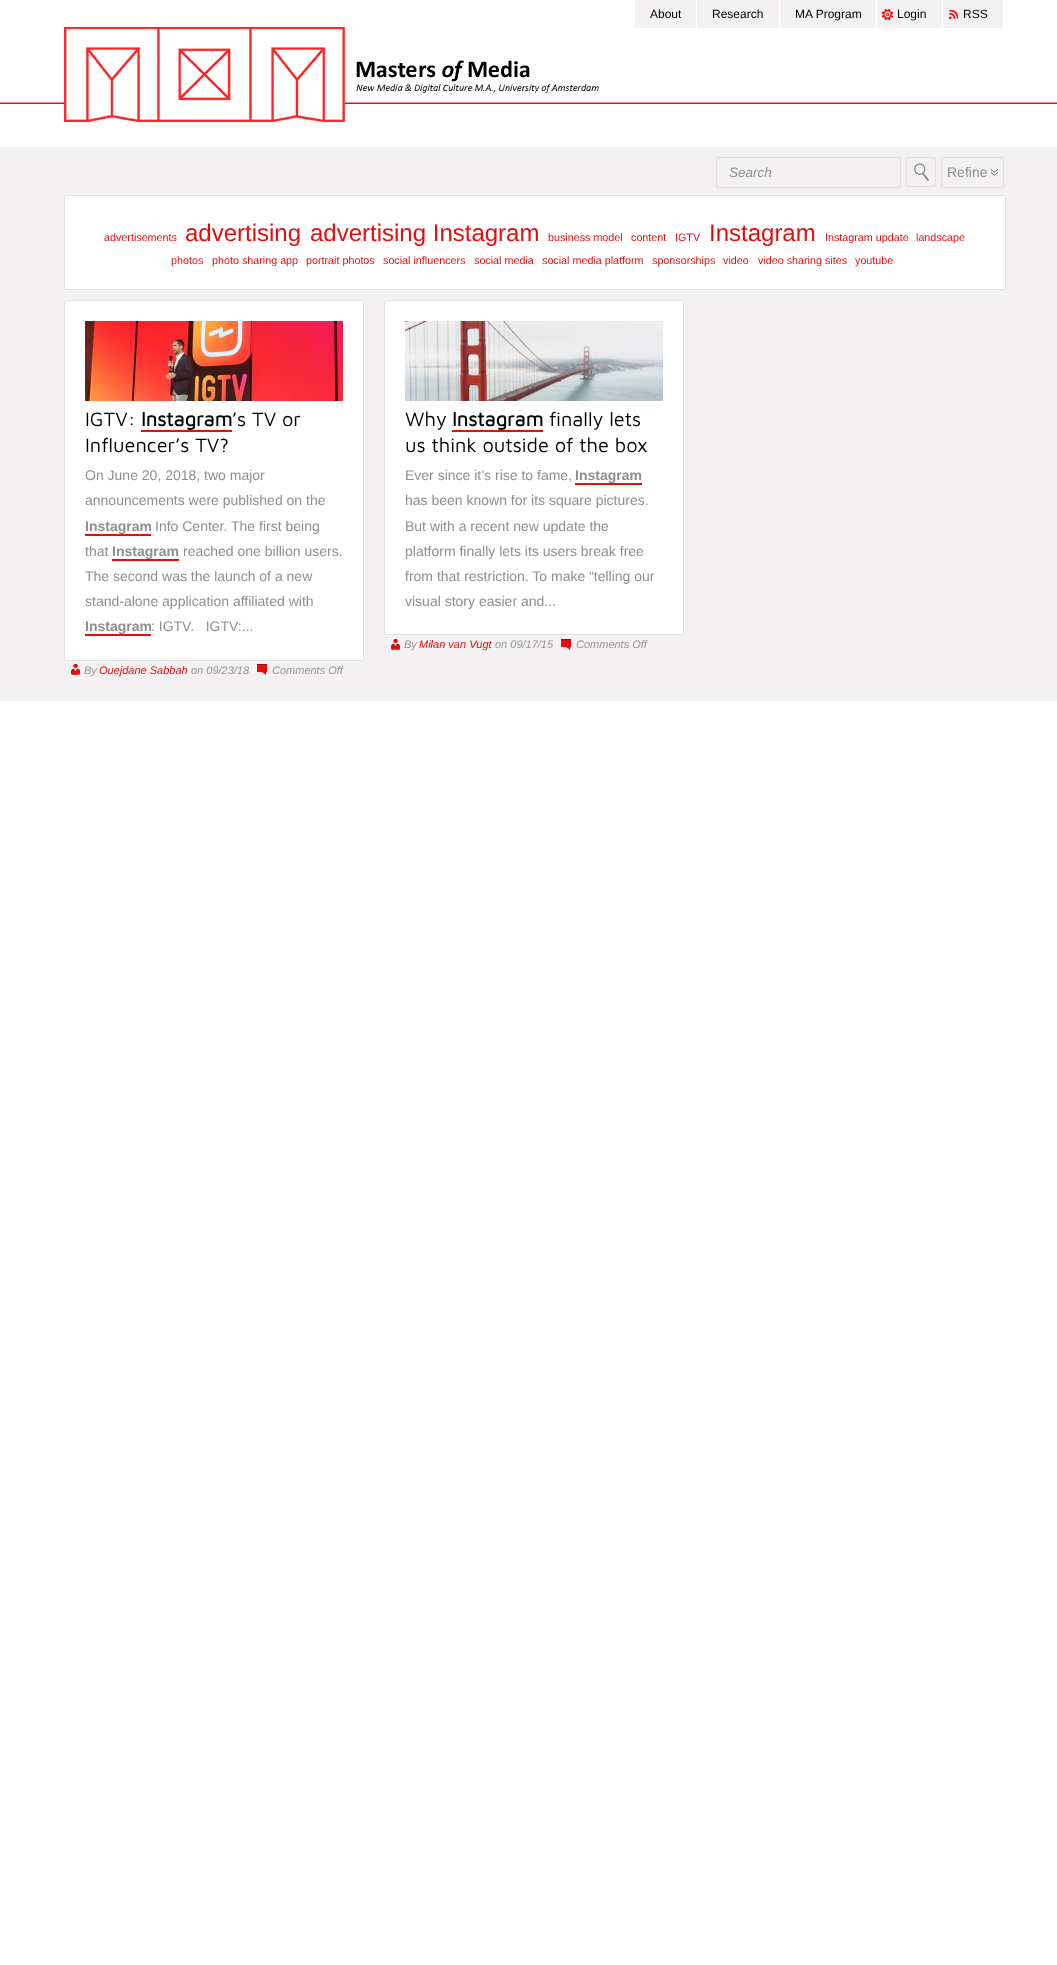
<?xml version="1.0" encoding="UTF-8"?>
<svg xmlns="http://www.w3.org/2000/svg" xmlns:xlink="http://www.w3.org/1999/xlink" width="1057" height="1965">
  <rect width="100%" height="100%" fill="#ffffff" />
  <rect x="635" width="61" height="28" fill="#f3f1f1" />
  <rect x="697" width="82" height="28" fill="#f3f1f1" />
  <rect x="780" width="96" height="28" fill="#f3f1f1" />
  <rect x="877" width="65" height="28" fill="#f3f1f1" />
  <image x="882" y="9" width="11" height="11" xlink:href="image1.png" />
  <rect x="943" width="60" height="28" fill="#f3f1f1" />
  <image x="949" y="10" width="9" height="9" xlink:href="image2.png" />
  <image x="0" y="102" width="1057" height="2" xlink:href="image3.png" />
  <image x="64" y="27" width="535" height="95" xlink:href="image4.png" />
  <rect y="147" width="1057" height="554" fill="#f3f1f1" />
  <rect x="716.5" y="157.5" width="184" height="30" rx="1.5" fill="none" stroke="#e2e0e0" />
  <image x="914" y="163" width="15" height="18" xlink:href="image5.png" />
  <rect x="906.5" y="157.5" width="29" height="29" rx="1.5" fill="none" stroke="#e2e0e0" />
  <rect x="941.5" y="157.5" width="62" height="30" rx="1.5" fill="none" stroke="#e2e0e0" />
  <image x="991" y="169" width="7" height="7" xlink:href="image6.png" />
  <rect x="64.5" y="195.5" width="941" height="94" rx="1.5" fill="#ffffff" stroke="#e2e0e0" />
  <rect x="64.5" y="300.5" width="299" height="360" rx="1.5" fill="#ffffff" stroke="#e2e0e0" />
  <image x="85" y="321" width="258" height="80" xlink:href="image7.png" />
  <rect x="141" y="430" width="91" height="2" fill="#ea0b0b" />
  <rect x="85" y="534" width="66" height="2" fill="#ea0b0b" />
  <rect x="112" y="559" width="67" height="2" fill="#ea0b0b" />
  <rect x="85" y="634" width="66" height="2" fill="#ea0b0b" />
  <image x="71" y="664" width="9" height="11" xlink:href="image8.png" />
  <image x="257" y="664" width="10" height="11" xlink:href="image9.png" />
  <rect x="384.5" y="300.5" width="299" height="334" rx="1.5" fill="#ffffff" stroke="#e2e0e0" />
  <image x="405" y="321" width="258" height="80" xlink:href="image10.png" />
  <rect x="452" y="430" width="91" height="2" fill="#ea0b0b" />
  <rect x="575" y="483" width="67" height="2" fill="#ea0b0b" />
  <image x="391" y="639" width="9" height="11" xlink:href="image8.png" />
  <image x="561" y="639" width="10" height="11" xlink:href="image9.png" />
  <text x="650" y="18" style="font-family: Liberation Sans; font-size: 12px; fill: #000000">About</text>
  <text x="712" y="18" style="font-family: Liberation Sans; font-size: 12px; fill: #000000">Research</text>
  <text x="795" y="18" style="font-family: Liberation Sans; font-size: 12px; fill: #000000">MA Program</text>
  <text x="897" y="18" style="font-family: Liberation Sans; font-size: 12px; fill: #000000">Login</text>
  <text x="963" y="18" style="font-family: Liberation Sans; font-size: 12px; fill: #000000">RSS</text>
  <text x="729" y="177" style="font-family: Liberation Sans; font-size: 13.5px; font-style: italic; fill: #8f8f8f">Search</text>
  <text x="947" y="177" style="font-family: Liberation Sans; font-size: 14px; fill: #8f8f8f">Refine</text>
  <text x="104" y="241" style="font-family: Liberation Sans; font-size: 10.75px; fill: #ea0b0b">advertisements</text>
  <text x="185" y="241" style="font-family: Liberation Sans; font-size: 24px; fill: #ea0b0b">advertising</text>
  <text x="310" y="241" style="font-family: Liberation Sans; font-size: 24px; fill: #ea0b0b">advertising Instagram</text>
  <text x="548" y="241" style="font-family: Liberation Sans; font-size: 10.75px; fill: #ea0b0b">business model</text>
  <text x="631" y="241" style="font-family: Liberation Sans; font-size: 10.75px; fill: #ea0b0b">content</text>
  <text x="675" y="241" style="font-family: Liberation Sans; font-size: 10.75px; fill: #ea0b0b">IGTV</text>
  <text x="709" y="241" style="font-family: Liberation Sans; font-size: 24px; fill: #ea0b0b">Instagram</text>
  <text x="825" y="241" style="font-family: Liberation Sans; font-size: 10.75px; fill: #ea0b0b">Instagram update</text>
  <text x="916" y="241" style="font-family: Liberation Sans; font-size: 10.75px; fill: #ea0b0b">landscape</text>
  <text x="171" y="264" style="font-family: Liberation Sans; font-size: 10.75px; fill: #ea0b0b">photos</text>
  <text x="212" y="264" style="font-family: Liberation Sans; font-size: 10.75px; fill: #ea0b0b">photo sharing app</text>
  <text x="306" y="264" style="font-family: Liberation Sans; font-size: 10.75px; fill: #ea0b0b">portrait photos</text>
  <text x="383" y="264" style="font-family: Liberation Sans; font-size: 10.75px; fill: #ea0b0b">social influencers</text>
  <text x="474" y="264" style="font-family: Liberation Sans; font-size: 10.75px; fill: #ea0b0b">social media</text>
  <text x="542" y="264" style="font-family: Liberation Sans; font-size: 10.75px; fill: #ea0b0b">social media platform</text>
  <text x="652" y="264" style="font-family: Liberation Sans; font-size: 10.75px; fill: #ea0b0b">sponsorships</text>
  <text x="723" y="264" style="font-family: Liberation Sans; font-size: 10.75px; fill: #ea0b0b">video</text>
  <text x="758" y="264" style="font-family: Liberation Sans; font-size: 10.75px; fill: #ea0b0b">video sharing sites</text>
  <text x="855" y="264" style="font-family: Liberation Sans; font-size: 10.75px; fill: #ea0b0b">youtube</text>
  <text x="85" y="426" style="font-family: Maven Pro; font-size: 20px; fill: #000000">IGTV:</text>
  <text x="141" y="426" style="font-family: Maven Pro; font-size: 20px; font-weight: bold; fill: #000000">Instagram</text>
  <text x="232" y="426" style="font-family: Maven Pro; font-size: 20px; fill: #000000">’s TV or</text>
  <text x="85" y="452" style="font-family: Maven Pro; font-size: 20px; fill: #000000">Influencer’s TV?</text>
  <text x="85" y="480" style="font-family: Liberation Sans; font-size: 14px; fill: #8f8f8f">On June 20, 2018, two major</text>
  <text x="85" y="505" style="font-family: Liberation Sans; font-size: 14px; fill: #8f8f8f">announcements were published on the</text>
  <text x="85" y="531" style="font-family: Liberation Sans; font-size: 14px; font-weight: bold; fill: #8f8f8f">Instagram</text>
  <text x="155" y="531" style="font-family: Liberation Sans; font-size: 14px; fill: #8f8f8f">Info Center. The first being</text>
  <text x="85" y="556" style="font-family: Liberation Sans; font-size: 14px; fill: #8f8f8f">that</text>
  <text x="112" y="556" style="font-family: Liberation Sans; font-size: 14px; font-weight: bold; fill: #8f8f8f">Instagram</text>
  <text x="183" y="556" style="font-family: Liberation Sans; font-size: 14px; fill: #8f8f8f">reached one billion users.</text>
  <text x="85" y="581" style="font-family: Liberation Sans; font-size: 14px; fill: #8f8f8f">The second was the launch of a new</text>
  <text x="85" y="606" style="font-family: Liberation Sans; font-size: 14px; fill: #8f8f8f">stand-alone application affiliated with</text>
  <text x="85" y="631" style="font-family: Liberation Sans; font-size: 14px; font-weight: bold; fill: #8f8f8f">Instagram</text>
  <text x="151" y="631" style="font-family: Liberation Sans; font-size: 14px; fill: #8f8f8f" xml:space="preserve">: IGTV.   IGTV:...</text>
  <text x="84" y="674" style="font-family: Liberation Sans; font-size: 11px; font-style: italic; fill: #959394">By</text>
  <text x="99" y="674" style="font-family: Liberation Sans; font-size: 11px; font-style: italic; fill: #ea0b0b">Ouejdane Sabbah</text>
  <text x="191" y="674" style="font-family: Liberation Sans; font-size: 11px; font-style: italic; fill: #959394">on 09/23/18</text>
  <text x="272" y="674" style="font-family: Liberation Sans; font-size: 11px; font-style: italic; fill: #959394">Comments Off</text>
  <text x="405" y="426" style="font-family: Maven Pro; font-size: 20px; fill: #000000">Why</text>
  <text x="452" y="426" style="font-family: Maven Pro; font-size: 20px; font-weight: bold; fill: #000000">Instagram</text>
  <text x="549" y="426" style="font-family: Maven Pro; font-size: 20px; fill: #000000">finally lets</text>
  <text x="405" y="452" style="font-family: Maven Pro; font-size: 20px; fill: #000000">us think outside of the box</text>
  <text x="405" y="480" style="font-family: Liberation Sans; font-size: 14px; fill: #8f8f8f">Ever since it’s rise to fame,</text>
  <text x="575" y="480" style="font-family: Liberation Sans; font-size: 14px; font-weight: bold; fill: #8f8f8f">Instagram</text>
  <text x="405" y="505" style="font-family: Liberation Sans; font-size: 14px; fill: #8f8f8f">has been known for its square pictures.</text>
  <text x="405" y="531" style="font-family: Liberation Sans; font-size: 14px; fill: #8f8f8f">But with a recent new update the</text>
  <text x="405" y="556" style="font-family: Liberation Sans; font-size: 14px; fill: #8f8f8f">platform finally lets its users break free</text>
  <text x="405" y="581" style="font-family: Liberation Sans; font-size: 14px; fill: #8f8f8f">from that restriction. To make “telling our</text>
  <text x="405" y="606" style="font-family: Liberation Sans; font-size: 14px; fill: #8f8f8f">visual story easier and...</text>
  <text x="404" y="648" style="font-family: Liberation Sans; font-size: 11px; font-style: italic; fill: #959394">By</text>
  <text x="419" y="648" style="font-family: Liberation Sans; font-size: 11px; font-style: italic; fill: #ea0b0b">Milan van Vugt</text>
  <text x="495" y="648" style="font-family: Liberation Sans; font-size: 11px; font-style: italic; fill: #959394">on 09/17/15</text>
  <text x="576" y="648" style="font-family: Liberation Sans; font-size: 11px; font-style: italic; fill: #959394">Comments Off</text>
</svg>
